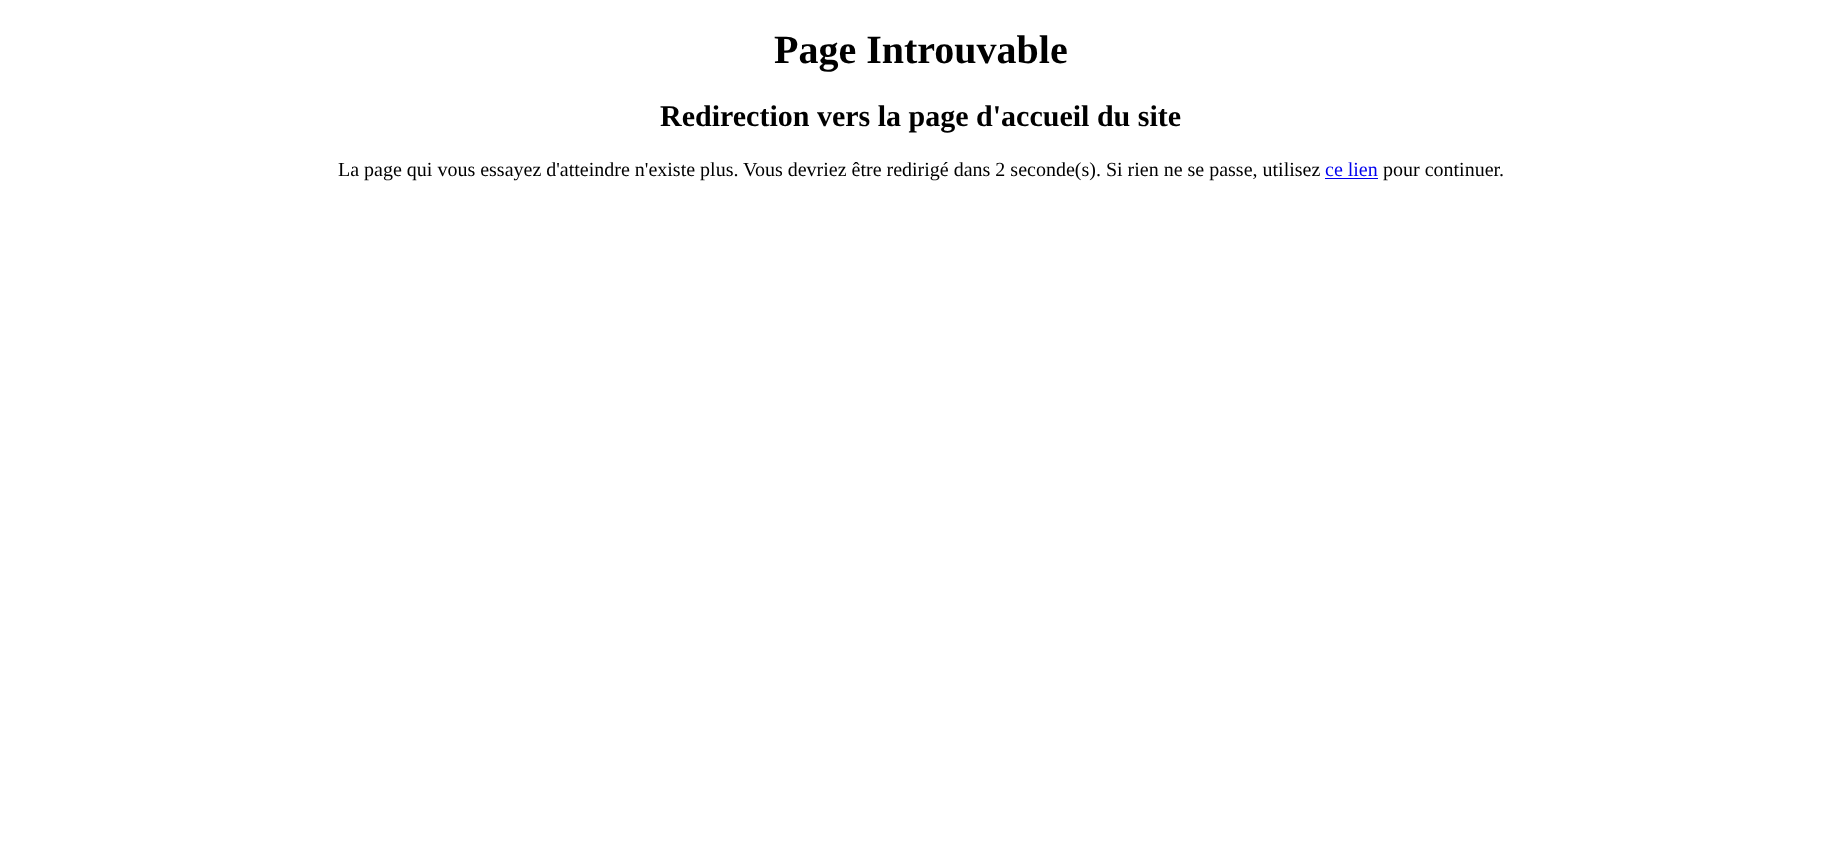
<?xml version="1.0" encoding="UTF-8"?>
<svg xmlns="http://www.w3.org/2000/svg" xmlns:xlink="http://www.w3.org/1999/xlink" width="1841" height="854">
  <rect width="100%" height="100%" fill="#ffffff" />
  <rect x="1325" y="178" width="53" height="1" fill="#0000ee" />
  <text x="774" y="63" style="font-family: Liberation Serif; font-size: 40px; font-weight: bold; fill: #000000">Page Introuvable</text>
  <text x="660" y="126" style="font-family: Liberation Serif; font-size: 30px; font-weight: bold; fill: #000000">Redirection vers la page d'accueil du site</text>
  <text x="338" y="176" style="font-family: Liberation Serif; font-size: 20px; fill: #000000">La page qui vous essayez d'atteindre n'existe plus. Vous devriez être redirigé dans 2 seconde(s). Si rien ne se passe, utilisez</text>
  <text x="1325" y="176" style="font-family: Liberation Serif; font-size: 20px; fill: #0000ee">ce lien</text>
  <text x="1383" y="176" style="font-family: Liberation Serif; font-size: 20px; fill: #000000">pour continuer.</text>
</svg>
